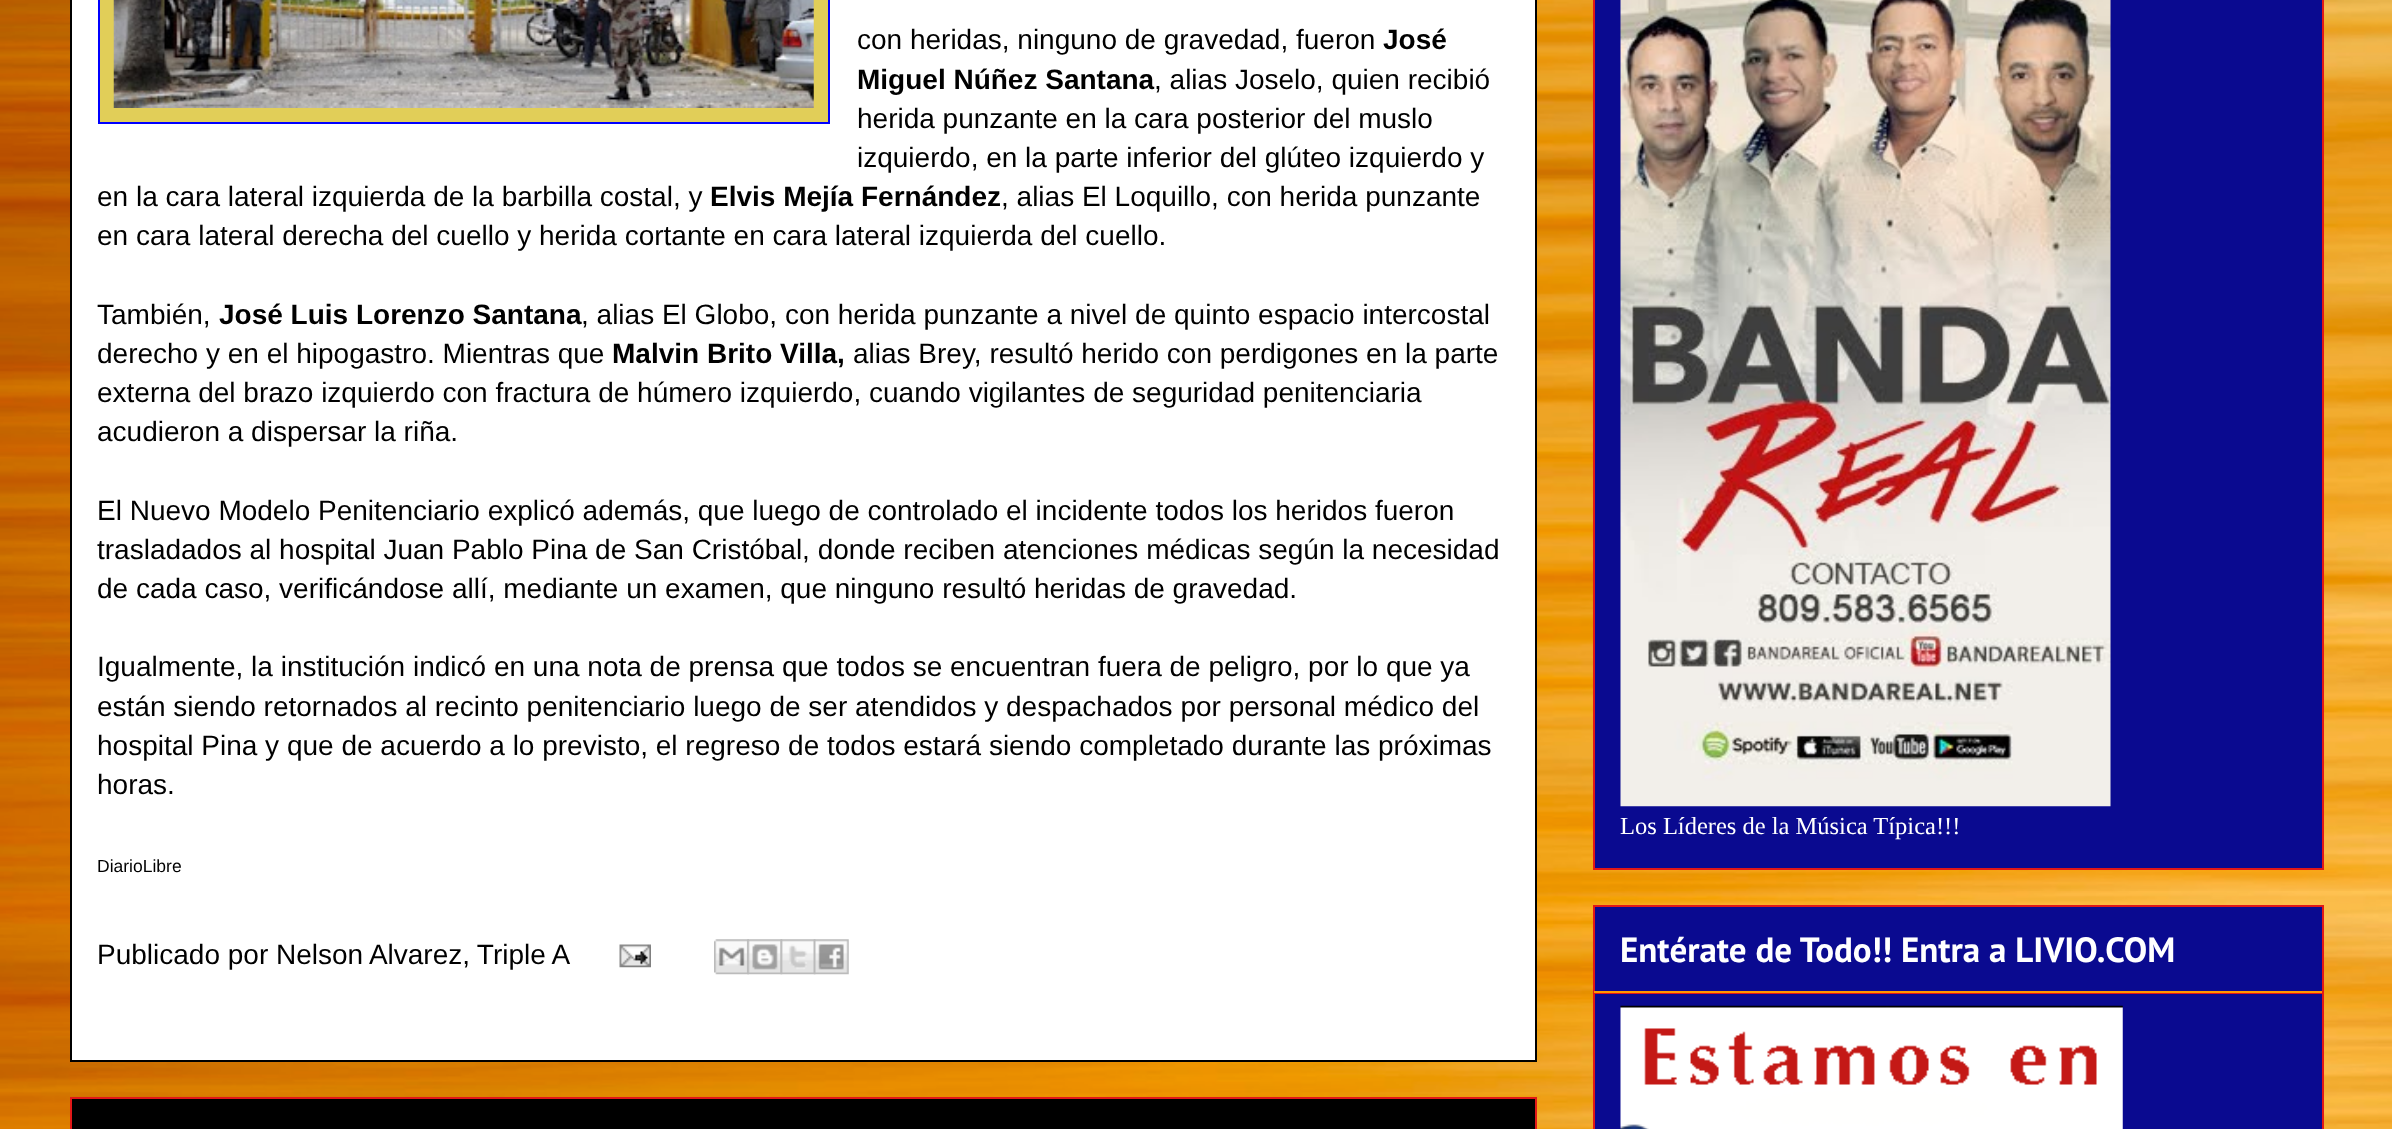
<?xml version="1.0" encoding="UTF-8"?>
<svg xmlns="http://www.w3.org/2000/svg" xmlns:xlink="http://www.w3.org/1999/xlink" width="2392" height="1129">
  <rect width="100%" height="100%" fill="#ffffff" />
  <image x="0" y="0" width="2392" height="1129" xlink:href="image1.png" />
  <rect x="71" y="-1" width="1465" height="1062" fill="#ffffff" stroke="#000000" stroke-width="2" />
  <rect x="99" y="-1" width="730" height="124" fill="#e1ce58" stroke="#0000ff" stroke-width="2" />
  <image x="113" y="0" width="701" height="108" xlink:href="image2.png" />
  <image x="619" y="944" width="32" height="24" xlink:href="image3.png" />
  <image x="714" y="939" width="35" height="36" xlink:href="image4.png" />
  <image x="747" y="939" width="36" height="36" xlink:href="image5.png" />
  <image x="780" y="939" width="36" height="36" xlink:href="image6.png" />
  <image x="813" y="939" width="36" height="36" xlink:href="image7.png" />
  <rect x="71" y="1098" width="1465" height="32" fill="#000000" stroke="#e11818" stroke-width="2" />
  <rect x="1594" y="-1" width="729" height="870" fill="#0a0a90" stroke="#e11818" stroke-width="2" />
  <image x="1620" y="0" width="491" height="807" xlink:href="image8.png" />
  <rect x="1594" y="906" width="729" height="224" fill="#0a0a90" stroke="#e11818" stroke-width="2" />
  <rect x="1594" y="991" width="728" height="2" fill="#ff9900" />
  <rect x="1594" y="993" width="728" height="1" fill="#e11818" />
  <image x="1620" y="1005" width="503" height="124" xlink:href="image9.png" />
  <text x="857" y="49" style="font-family: Liberation Sans; font-size: 28px; fill: #000000">con heridas, ninguno de gravedad, fueron</text>
  <text x="1383" y="49" style="font-family: Liberation Sans; font-size: 28px; font-weight: bold; fill: #000000">José</text>
  <text x="857" y="89" style="font-family: Liberation Sans; font-size: 28px; font-weight: bold; fill: #000000">Miguel Núñez Santana</text>
  <text x="1154" y="89" style="font-family: Liberation Sans; font-size: 28px; fill: #000000">, alias Joselo, quien recibió</text>
  <text x="857" y="128" style="font-family: Liberation Sans; font-size: 28px; fill: #000000">herida punzante en la cara posterior del muslo</text>
  <text x="857" y="167" style="font-family: Liberation Sans; font-size: 28px; fill: #000000">izquierdo, en la parte inferior del glúteo izquierdo y</text>
  <text x="97" y="206" style="font-family: Liberation Sans; font-size: 28px; fill: #000000">en la cara lateral izquierda de la barbilla costal, y</text>
  <text x="710" y="206" style="font-family: Liberation Sans; font-size: 28px; font-weight: bold; fill: #000000">Elvis Mejía Fernández</text>
  <text x="1001" y="206" style="font-family: Liberation Sans; font-size: 28px; fill: #000000">, alias El Loquillo, con herida punzante</text>
  <text x="97" y="245" style="font-family: Liberation Sans; font-size: 28px; fill: #000000">en cara lateral derecha del cuello y herida cortante en cara lateral izquierda del cuello.</text>
  <text x="97" y="324" style="font-family: Liberation Sans; font-size: 28px; fill: #000000">También,</text>
  <text x="219" y="324" style="font-family: Liberation Sans; font-size: 28px; font-weight: bold; fill: #000000">José Luis Lorenzo Santana</text>
  <text x="581" y="324" style="font-family: Liberation Sans; font-size: 28px; fill: #000000">, alias El Globo, con herida punzante a nivel de quinto espacio intercostal</text>
  <text x="97" y="363" style="font-family: Liberation Sans; font-size: 28px; fill: #000000">derecho y en el hipogastro. Mientras que</text>
  <text x="612" y="363" style="font-family: Liberation Sans; font-size: 28px; font-weight: bold; fill: #000000">Malvin Brito Villa,</text>
  <text x="853" y="363" style="font-family: Liberation Sans; font-size: 28px; fill: #000000">alias Brey, resultó herido con perdigones en la parte</text>
  <text x="97" y="402" style="font-family: Liberation Sans; font-size: 28px; fill: #000000">externa del brazo izquierdo con fractura de húmero izquierdo, cuando vigilantes de seguridad penitenciaria</text>
  <text x="97" y="441" style="font-family: Liberation Sans; font-size: 28px; fill: #000000">acudieron a dispersar la riña.</text>
  <text x="97" y="520" style="font-family: Liberation Sans; font-size: 28px; fill: #000000">El Nuevo Modelo Penitenciario explicó además, que luego de controlado el incidente todos los heridos fueron</text>
  <text x="97" y="559" style="font-family: Liberation Sans; font-size: 28px; fill: #000000">trasladados al hospital Juan Pablo Pina de San Cristóbal, donde reciben atenciones médicas según la necesidad</text>
  <text x="97" y="598" style="font-family: Liberation Sans; font-size: 28px; fill: #000000">de cada caso, verificándose allí, mediante un examen, que ninguno resultó heridas de gravedad.</text>
  <text x="97" y="676" style="font-family: Liberation Sans; font-size: 28px; fill: #000000">Igualmente, la institución indicó en una nota de prensa que todos se encuentran fuera de peligro, por lo que ya</text>
  <text x="97" y="716" style="font-family: Liberation Sans; font-size: 28px; fill: #000000">están siendo retornados al recinto penitenciario luego de ser atendidos y despachados por personal médico del</text>
  <text x="97" y="755" style="font-family: Liberation Sans; font-size: 28px; fill: #000000">hospital Pina y que de acuerdo a lo previsto, el regreso de todos estará siendo completado durante las próximas</text>
  <text x="97" y="794" style="font-family: Liberation Sans; font-size: 28px; fill: #000000">horas.</text>
  <text x="97" y="872" style="font-family: Liberation Sans; font-size: 17.5px; fill: #000000">DiarioLibre</text>
  <text x="97" y="964" style="font-family: Liberation Sans; font-size: 28px; fill: #000000">Publicado por</text>
  <text x="276" y="964" word-spacing="-0.5" style="font-family: Liberation Sans; font-size: 28px; fill: #000000">Nelson Alvarez, Triple A</text>
  <text x="1620" y="834" style="font-family: Liberation Serif; font-size: 24.5px; fill: #ffffff">Los Líderes de la Música Típica!!!</text>
  <text x="1620" y="962" style="font-family: PT Sans; font-size: 35px; font-weight: bold; fill: #ffffff">Entérate de Todo!! Entra a LIVIO.COM</text>
</svg>
